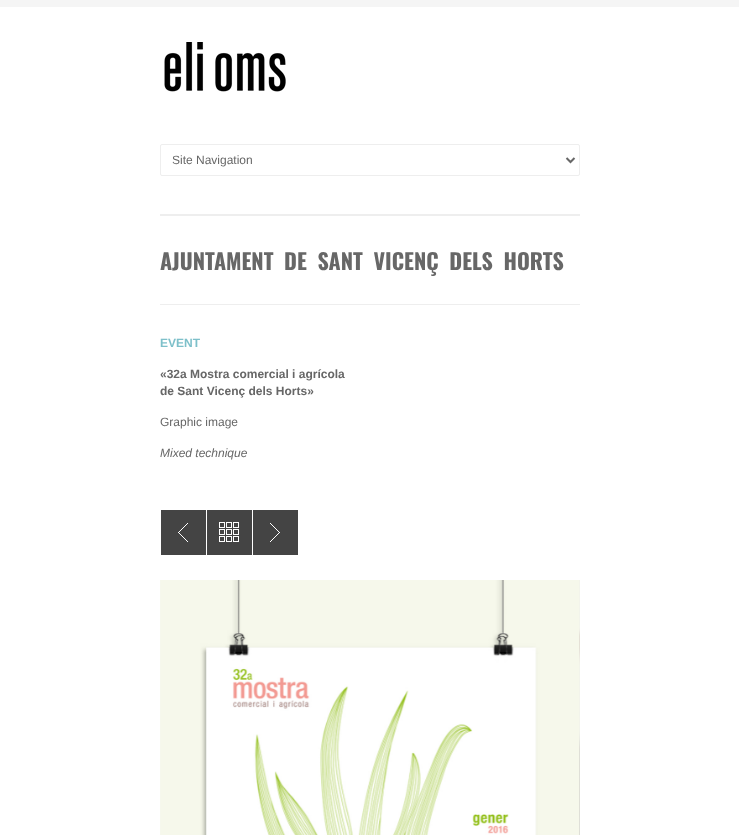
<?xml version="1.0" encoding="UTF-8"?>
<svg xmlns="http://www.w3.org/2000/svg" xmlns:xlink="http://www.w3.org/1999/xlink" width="739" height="835">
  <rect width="100%" height="100%" fill="#ffffff" />
  <rect width="739" height="7" fill="#f5f5f5" />
  <image x="164" y="42" width="122" height="50" xlink:href="image1.png" />
  <rect x="160.5" y="144.5" width="419" height="31" rx="1.5" fill="none" stroke="#eeeeee" />
  <path d="M 566.5 158 l 4 4 l 4 -4" fill="none" stroke="#676767" stroke-width="2" />
  <rect x="160" y="214" width="420" height="2" fill="#eeeeee" />
  <rect x="160" y="304" width="420" height="1" fill="#eeeeee" />
  <rect x="161" y="510" width="45" height="45" fill="#444444" />
  <image x="178" y="523" width="10" height="19" xlink:href="image2.png" />
  <rect x="207" y="510" width="45" height="45" fill="#444444" />
  <image x="219" y="522" width="20" height="20" xlink:href="image3.png" />
  <rect x="253" y="510" width="45" height="45" fill="#444444" />
  <image x="270" y="523" width="10" height="19" xlink:href="image4.png" />
  <image x="160" y="580" width="420" height="255" xlink:href="image5.png" />
  <image x="579" y="580" width="1" height="255" xlink:href="image6.png" />
  <text x="172" y="164" style="font-family: Liberation Sans; font-size: 12px; fill: #676767">Site Navigation</text>
  <text x="160" y="270" word-spacing="5" style="font-family: Oswald; font-size: 22px; font-weight: bold; fill: #676767">AJUNTAMENT DE SANT VICENÇ DELS HORTS</text>
  <text x="160" y="347" style="font-family: Liberation Sans; font-size: 12px; font-weight: bold; fill: #7ec0ca">EVENT</text>
  <text x="160" y="378" style="font-family: Liberation Sans; font-size: 12px; font-weight: bold; fill: #676767">«32a Mostra comercial i agrícola</text>
  <text x="160" y="395" style="font-family: Liberation Sans; font-size: 12px; font-weight: bold; fill: #676767">de Sant Vicenç dels Horts»</text>
  <text x="160" y="426" style="font-family: Liberation Sans; font-size: 12px; fill: #676767">Graphic image</text>
  <text x="160" y="457" style="font-family: Liberation Sans; font-size: 12px; font-style: italic; fill: #676767">Mixed technique</text>
</svg>
